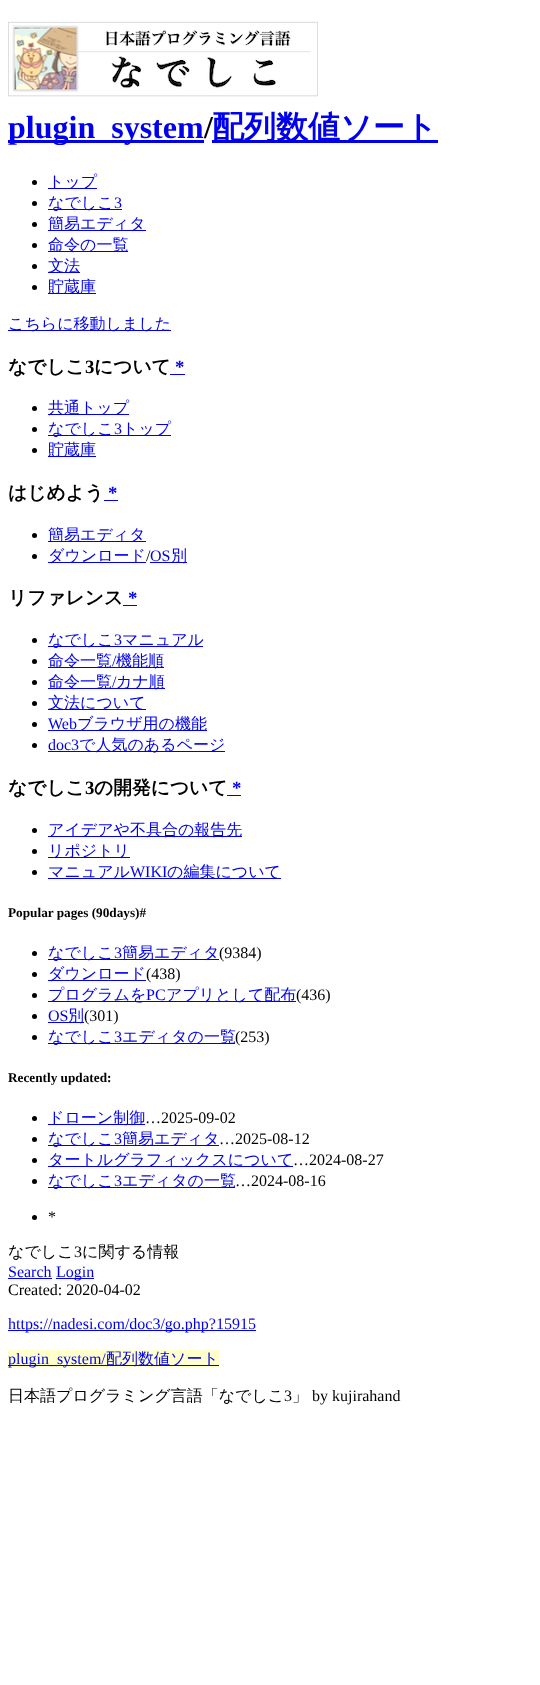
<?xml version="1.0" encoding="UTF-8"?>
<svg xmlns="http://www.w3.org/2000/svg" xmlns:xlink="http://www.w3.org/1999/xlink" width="540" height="1685">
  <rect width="100%" height="100%" fill="#ffffff" />
  <image x="8" y="21" width="310" height="76" xlink:href="image1.png" />
  <rect x="8" y="140" width="196" height="3" fill="#0000ee" />
  <rect x="212" y="140" width="226" height="3" fill="#0000ee" />
  <circle cx="34.5" cy="182.5" r="2.5" fill="#000000" />
  <rect x="48" y="188" width="49" height="1" fill="#0000ee" />
  <circle cx="34.5" cy="203.5" r="2.5" fill="#000000" />
  <rect x="48" y="209" width="74" height="1" fill="#0000ee" />
  <circle cx="34.5" cy="224.5" r="2.5" fill="#000000" />
  <rect x="48" y="230" width="98" height="1" fill="#0000ee" />
  <circle cx="34.5" cy="245.5" r="2.5" fill="#000000" />
  <rect x="48" y="251" width="80" height="1" fill="#0000ee" />
  <circle cx="34.5" cy="266.5" r="2.5" fill="#000000" />
  <rect x="48" y="272" width="32" height="1" fill="#0000ee" />
  <circle cx="34.5" cy="287.5" r="2.5" fill="#000000" />
  <rect x="48" y="293" width="48" height="1" fill="#0000ee" />
  <rect x="8" y="330" width="163" height="1" fill="#0000ee" />
  <rect x="170" y="374" width="15" height="1" fill="#0000ee" />
  <circle cx="34.5" cy="408.5" r="2.5" fill="#000000" />
  <rect x="48" y="414" width="81" height="1" fill="#0000ee" />
  <circle cx="34.5" cy="429.5" r="2.5" fill="#000000" />
  <rect x="48" y="435" width="123" height="1" fill="#0000ee" />
  <circle cx="34.5" cy="450.5" r="2.5" fill="#000000" />
  <rect x="48" y="456" width="48" height="1" fill="#0000ee" />
  <rect x="104" y="500" width="14" height="1" fill="#0000ee" />
  <circle cx="34.5" cy="535.5" r="2.5" fill="#000000" />
  <rect x="48" y="541" width="98" height="1" fill="#0000ee" />
  <circle cx="34.5" cy="556.5" r="2.5" fill="#000000" />
  <rect x="48" y="562" width="98" height="1" fill="#0000ee" />
  <rect x="150" y="562" width="37" height="1" fill="#0000ee" />
  <rect x="123" y="605" width="14" height="1" fill="#0000ee" />
  <circle cx="34.5" cy="640.5" r="2.5" fill="#000000" />
  <rect x="48" y="646" width="155" height="1" fill="#0000ee" />
  <circle cx="34.5" cy="661.5" r="2.5" fill="#000000" />
  <rect x="48" y="667" width="116" height="1" fill="#0000ee" />
  <circle cx="34.5" cy="682.5" r="2.5" fill="#000000" />
  <rect x="48" y="688" width="117" height="1" fill="#0000ee" />
  <circle cx="34.5" cy="703.5" r="2.5" fill="#000000" />
  <rect x="48" y="709" width="98" height="1" fill="#0000ee" />
  <circle cx="34.5" cy="724.5" r="2.5" fill="#000000" />
  <rect x="48" y="730" width="159" height="1" fill="#0000ee" />
  <circle cx="34.5" cy="745.5" r="2.5" fill="#000000" />
  <rect x="48" y="751" width="177" height="1" fill="#0000ee" />
  <rect x="227" y="795" width="14" height="1" fill="#0000ee" />
  <circle cx="34.5" cy="830.5" r="2.5" fill="#000000" />
  <rect x="48" y="836" width="194" height="1" fill="#0000ee" />
  <circle cx="34.5" cy="851.5" r="2.5" fill="#000000" />
  <rect x="48" y="857" width="82" height="1" fill="#0000ee" />
  <circle cx="34.5" cy="872.5" r="2.5" fill="#000000" />
  <rect x="48" y="878" width="233" height="1" fill="#0000ee" />
  <circle cx="34.5" cy="953.5" r="2.5" fill="#000000" />
  <rect x="48" y="959" width="171" height="1" fill="#0000ee" />
  <circle cx="34.5" cy="974.5" r="2.5" fill="#000000" />
  <rect x="48" y="980" width="98" height="1" fill="#0000ee" />
  <circle cx="34.5" cy="995.5" r="2.5" fill="#000000" />
  <rect x="48" y="1001" width="248" height="1" fill="#0000ee" />
  <circle cx="34.5" cy="1016.5" r="2.5" fill="#000000" />
  <rect x="48" y="1022" width="36" height="1" fill="#0000ee" />
  <circle cx="34.5" cy="1037.5" r="2.5" fill="#000000" />
  <rect x="48" y="1043" width="187" height="1" fill="#0000ee" />
  <circle cx="34.5" cy="1118.5" r="2.5" fill="#000000" />
  <rect x="48" y="1124" width="97" height="1" fill="#0000ee" />
  <circle cx="34.5" cy="1139.5" r="2.5" fill="#000000" />
  <rect x="48" y="1145" width="171" height="1" fill="#0000ee" />
  <circle cx="34.5" cy="1160.5" r="2.5" fill="#000000" />
  <rect x="48" y="1166" width="245" height="1" fill="#0000ee" />
  <circle cx="34.5" cy="1181.5" r="2.5" fill="#000000" />
  <rect x="48" y="1187" width="187" height="1" fill="#0000ee" />
  <circle cx="34.5" cy="1217.5" r="2.5" fill="#000000" />
  <rect x="8" y="1278" width="44" height="1" fill="#0000ee" />
  <rect x="56" y="1278" width="38" height="1" fill="#0000ee" />
  <rect x="8" y="1330" width="248" height="1" fill="#0000ee" />
  <rect x="8" y="1350" width="211" height="17" fill="#ffffcc" />
  <rect x="8" y="1365" width="211" height="1" fill="#0000ee" />
  <text x="8" y="138" style="font-family: Liberation Serif; font-size: 32px; font-weight: bold; fill: #0000ee">plugin_system</text>
  <text x="204" y="138" style="font-family: Liberation Serif; font-size: 32px; font-weight: bold; fill: #000000">/</text>
  <text x="212" y="138" style="font-family: WenQuanYi Zen Hei; font-size: 32px; font-weight: bold; fill: #0000ee">配列数値ソート</text>
  <text x="48" y="187" style="font-family: WenQuanYi Zen Hei; font-size: 16px; font-weight: 500; fill: #0000ee">トップ</text>
  <text x="48" y="208" style="font-family: WenQuanYi Zen Hei; font-size: 16px; font-weight: 500; fill: #0000ee">なでしこ</text>
  <text x="114" y="208" style="font-family: Liberation Serif; font-size: 16px; fill: #0000ee">3</text>
  <text x="48" y="229" style="font-family: WenQuanYi Zen Hei; font-size: 16px; font-weight: 500; fill: #0000ee">簡易エディタ</text>
  <text x="48" y="250" style="font-family: WenQuanYi Zen Hei; font-size: 16px; font-weight: 500; fill: #0000ee">命令の一覧</text>
  <text x="48" y="271" style="font-family: WenQuanYi Zen Hei; font-size: 16px; font-weight: 500; fill: #0000ee">文法</text>
  <text x="48" y="292" style="font-family: WenQuanYi Zen Hei; font-size: 16px; font-weight: 500; fill: #0000ee">貯蔵庫</text>
  <text x="8" y="329" style="font-family: WenQuanYi Zen Hei; font-size: 16px; font-weight: 500; fill: #0000ee">こちらに移動しました</text>
  <text x="8" y="373" style="font-family: WenQuanYi Zen Hei; font-size: 18.75px; font-weight: bold; fill: #000000">なでしこ</text>
  <text x="85" y="373" style="font-family: Liberation Serif; font-size: 18.75px; font-weight: bold; fill: #000000">3</text>
  <text x="94" y="373" style="font-family: WenQuanYi Zen Hei; font-size: 18.75px; font-weight: bold; fill: #000000">について</text>
  <text x="175" y="373" style="font-family: Liberation Serif; font-size: 18.75px; font-weight: bold; fill: #0000ee">*</text>
  <text x="48" y="413" style="font-family: WenQuanYi Zen Hei; font-size: 16px; font-weight: 500; fill: #0000ee">共通トップ</text>
  <text x="48" y="434" style="font-family: WenQuanYi Zen Hei; font-size: 16px; font-weight: 500; fill: #0000ee">なでしこ</text>
  <text x="114" y="434" style="font-family: Liberation Serif; font-size: 16px; fill: #0000ee">3</text>
  <text x="122" y="434" style="font-family: WenQuanYi Zen Hei; font-size: 16px; font-weight: 500; fill: #0000ee">トップ</text>
  <text x="48" y="455" style="font-family: WenQuanYi Zen Hei; font-size: 16px; font-weight: 500; fill: #0000ee">貯蔵庫</text>
  <text x="8" y="499" style="font-family: WenQuanYi Zen Hei; font-size: 18.75px; font-weight: bold; fill: #000000">はじめよう</text>
  <text x="108" y="499" style="font-family: Liberation Serif; font-size: 18.75px; font-weight: bold; fill: #0000ee">*</text>
  <text x="48" y="540" style="font-family: WenQuanYi Zen Hei; font-size: 16px; font-weight: 500; fill: #0000ee">簡易エディタ</text>
  <text x="48" y="561" style="font-family: WenQuanYi Zen Hei; font-size: 16px; font-weight: 500; fill: #0000ee">ダウンロード</text>
  <text x="146" y="561" style="font-family: Liberation Serif; font-size: 16px; fill: #000000">/</text>
  <text x="150" y="561" style="font-family: Liberation Serif; font-size: 16px; fill: #0000ee">OS</text>
  <text x="171" y="561" style="font-family: WenQuanYi Zen Hei; font-size: 16px; font-weight: 500; fill: #0000ee">別</text>
  <text x="8" y="604" style="font-family: WenQuanYi Zen Hei; font-size: 18.75px; font-weight: bold; fill: #000000">リファレンス</text>
  <text x="128" y="604" style="font-family: Liberation Serif; font-size: 18.75px; font-weight: bold; fill: #0000ee">*</text>
  <text x="48" y="645" style="font-family: WenQuanYi Zen Hei; font-size: 16px; font-weight: 500; fill: #0000ee">なでしこ</text>
  <text x="114" y="645" style="font-family: Liberation Serif; font-size: 16px; fill: #0000ee">3</text>
  <text x="122" y="645" style="font-family: WenQuanYi Zen Hei; font-size: 16px; font-weight: 500; fill: #0000ee">マニュアル</text>
  <text x="48" y="666" style="font-family: WenQuanYi Zen Hei; font-size: 16px; font-weight: 500; fill: #0000ee">命令一覧</text>
  <text x="112" y="666" style="font-family: Liberation Serif; font-size: 16px; fill: #0000ee">/</text>
  <text x="116" y="666" style="font-family: WenQuanYi Zen Hei; font-size: 16px; font-weight: 500; fill: #0000ee">機能順</text>
  <text x="48" y="687" style="font-family: WenQuanYi Zen Hei; font-size: 16px; font-weight: 500; fill: #0000ee">命令一覧</text>
  <text x="112" y="687" style="font-family: Liberation Serif; font-size: 16px; fill: #0000ee">/</text>
  <text x="116" y="687" style="font-family: WenQuanYi Zen Hei; font-size: 16px; font-weight: 500; fill: #0000ee">カナ順</text>
  <text x="48" y="708" style="font-family: WenQuanYi Zen Hei; font-size: 16px; font-weight: 500; fill: #0000ee">文法について</text>
  <text x="48" y="729" style="font-family: Liberation Serif; font-size: 16px; fill: #0000ee">Web</text>
  <text x="77" y="729" style="font-family: WenQuanYi Zen Hei; font-size: 16px; font-weight: 500; fill: #0000ee">ブラウザ用の機能</text>
  <text x="48" y="750" style="font-family: Liberation Serif; font-size: 16px; fill: #0000ee">doc3</text>
  <text x="79" y="750" style="font-family: WenQuanYi Zen Hei; font-size: 16px; font-weight: 500; fill: #0000ee">で人気のあるページ</text>
  <text x="8" y="794" style="font-family: WenQuanYi Zen Hei; font-size: 18.75px; font-weight: bold; fill: #000000">なでしこ</text>
  <text x="85" y="794" style="font-family: Liberation Serif; font-size: 18.75px; font-weight: bold; fill: #000000">3</text>
  <text x="94" y="794" style="font-family: WenQuanYi Zen Hei; font-size: 18.75px; font-weight: bold; fill: #000000">の開発について</text>
  <text x="232" y="794" style="font-family: Liberation Serif; font-size: 18.75px; font-weight: bold; fill: #0000ee">*</text>
  <text x="48" y="835" style="font-family: WenQuanYi Zen Hei; font-size: 16px; font-weight: 500; fill: #0000ee">アイデアや不具合の報告先</text>
  <text x="48" y="856" style="font-family: WenQuanYi Zen Hei; font-size: 16px; font-weight: 500; fill: #0000ee">リポジトリ</text>
  <text x="48" y="877" style="font-family: WenQuanYi Zen Hei; font-size: 16px; font-weight: 500; fill: #0000ee">マニュアル</text>
  <text x="130" y="877" style="font-family: Liberation Serif; font-size: 16px; fill: #0000ee">WIKI</text>
  <text x="167" y="877" style="font-family: WenQuanYi Zen Hei; font-size: 16px; font-weight: 500; fill: #0000ee">の編集について</text>
  <text x="8" y="917" style="font-family: Liberation Serif; font-size: 13.25px; font-weight: bold; fill: #000000">Popular pages (90days)#</text>
  <text x="48" y="958" style="font-family: WenQuanYi Zen Hei; font-size: 16px; font-weight: 500; fill: #0000ee">なでしこ</text>
  <text x="114" y="958" style="font-family: Liberation Serif; font-size: 16px; fill: #0000ee">3</text>
  <text x="122" y="958" style="font-family: WenQuanYi Zen Hei; font-size: 16px; font-weight: 500; fill: #0000ee">簡易エディタ</text>
  <text x="219" y="958" style="font-family: Liberation Serif; font-size: 16px; fill: #000000">(9384)</text>
  <text x="48" y="979" style="font-family: WenQuanYi Zen Hei; font-size: 16px; font-weight: 500; fill: #0000ee">ダウンロード</text>
  <text x="146" y="979" style="font-family: Liberation Serif; font-size: 16px; fill: #000000">(438)</text>
  <text x="48" y="1000" style="font-family: WenQuanYi Zen Hei; font-size: 16px; font-weight: 500; fill: #0000ee">プログラムを</text>
  <text x="146" y="1000" style="font-family: Liberation Serif; font-size: 16px; fill: #0000ee">PC</text>
  <text x="166" y="1000" style="font-family: WenQuanYi Zen Hei; font-size: 16px; font-weight: 500; fill: #0000ee">アプリとして配布</text>
  <text x="296" y="1000" style="font-family: Liberation Serif; font-size: 16px; fill: #000000">(436)</text>
  <text x="48" y="1021" style="font-family: Liberation Serif; font-size: 16px; fill: #0000ee">OS</text>
  <text x="68" y="1021" style="font-family: WenQuanYi Zen Hei; font-size: 16px; font-weight: 500; fill: #0000ee">別</text>
  <text x="84" y="1021" style="font-family: Liberation Serif; font-size: 16px; fill: #000000">(301)</text>
  <text x="48" y="1042" style="font-family: WenQuanYi Zen Hei; font-size: 16px; font-weight: 500; fill: #0000ee">なでしこ</text>
  <text x="114" y="1042" style="font-family: Liberation Serif; font-size: 16px; fill: #0000ee">3</text>
  <text x="122" y="1042" style="font-family: WenQuanYi Zen Hei; font-size: 16px; font-weight: 500; fill: #0000ee">エディタの一覧</text>
  <text x="235" y="1042" style="font-family: Liberation Serif; font-size: 16px; fill: #000000">(253)</text>
  <text x="8" y="1082" style="font-family: Liberation Serif; font-size: 13.25px; font-weight: bold; fill: #000000">Recently updated:</text>
  <text x="48" y="1123" style="font-family: WenQuanYi Zen Hei; font-size: 16px; font-weight: 500; fill: #0000ee">ドローン制御</text>
  <text x="145" y="1123" style="font-family: Liberation Serif; font-size: 16px; fill: #000000">…2025-09-02</text>
  <text x="48" y="1144" style="font-family: WenQuanYi Zen Hei; font-size: 16px; font-weight: 500; fill: #0000ee">なでしこ</text>
  <text x="114" y="1144" style="font-family: Liberation Serif; font-size: 16px; fill: #0000ee">3</text>
  <text x="122" y="1144" style="font-family: WenQuanYi Zen Hei; font-size: 16px; font-weight: 500; fill: #0000ee">簡易エディタ</text>
  <text x="219" y="1144" style="font-family: Liberation Serif; font-size: 16px; fill: #000000">…2025-08-12</text>
  <text x="48" y="1165" style="font-family: WenQuanYi Zen Hei; font-size: 16px; font-weight: 500; fill: #0000ee">タートルグラフィックスについて</text>
  <text x="293" y="1165" style="font-family: Liberation Serif; font-size: 16px; fill: #000000">…2024-08-27</text>
  <text x="48" y="1186" style="font-family: WenQuanYi Zen Hei; font-size: 16px; font-weight: 500; fill: #0000ee">なでしこ</text>
  <text x="114" y="1186" style="font-family: Liberation Serif; font-size: 16px; fill: #0000ee">3</text>
  <text x="122" y="1186" style="font-family: WenQuanYi Zen Hei; font-size: 16px; font-weight: 500; fill: #0000ee">エディタの一覧</text>
  <text x="235" y="1186" style="font-family: Liberation Serif; font-size: 16px; fill: #000000">…2024-08-16</text>
  <text x="48" y="1222" style="font-family: Liberation Serif; font-size: 16px; fill: #000000">*</text>
  <text x="8" y="1257" style="font-family: WenQuanYi Zen Hei; font-size: 16px; font-weight: 500; fill: #000000">なでしこ</text>
  <text x="74" y="1257" style="font-family: Liberation Serif; font-size: 16px; fill: #000000">3</text>
  <text x="82" y="1257" style="font-family: WenQuanYi Zen Hei; font-size: 16px; font-weight: 500; fill: #000000">に関する情報</text>
  <text x="8" y="1277" style="font-family: Liberation Serif; font-size: 16px; fill: #0000ee">Search</text>
  <text x="56" y="1277" style="font-family: Liberation Serif; font-size: 16px; fill: #0000ee">Login</text>
  <text x="8" y="1295" style="font-family: Liberation Serif; font-size: 16px; fill: #000000">Created: 2020-04-02</text>
  <text x="8" y="1329" style="font-family: Liberation Serif; font-size: 16px; fill: #0000ee">https://nadesi.com/doc3/go.php?15915</text>
  <text x="8" y="1364" style="font-family: Liberation Serif; font-size: 16px; fill: #0000ee">plugin_system/</text>
  <text x="106" y="1364" style="font-family: WenQuanYi Zen Hei; font-size: 16px; font-weight: 500; fill: #0000ee">配列数値ソート</text>
  <text x="8" y="1401" style="font-family: WenQuanYi Zen Hei; font-size: 16px; font-weight: 500; fill: #000000">日本語プログラミング言語「なでしこ</text>
  <text x="284" y="1401" style="font-family: Liberation Serif; font-size: 16px; fill: #000000">3</text>
  <text x="292" y="1401" style="font-family: WenQuanYi Zen Hei; font-size: 16px; font-weight: 500; fill: #000000">」</text>
  <text x="312" y="1401" style="font-family: Liberation Serif; font-size: 16px; fill: #000000">by kujirahand</text>
</svg>
